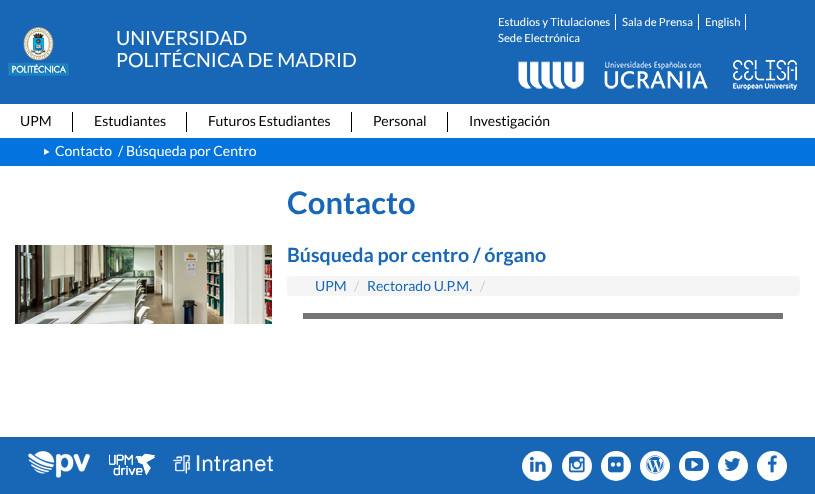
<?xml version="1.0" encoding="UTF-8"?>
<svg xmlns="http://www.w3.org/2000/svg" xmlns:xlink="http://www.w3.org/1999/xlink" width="815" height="494">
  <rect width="100%" height="100%" fill="#ffffff" />
  <rect width="815" height="104" fill="#1867b7" />
  <image x="8" y="27" width="61" height="49" xlink:href="image1.png" />
  <rect x="615" y="14" width="1" height="16" fill="#ffffff" />
  <rect x="698" y="14" width="1" height="16" fill="#ffffff" />
  <rect x="745" y="14" width="1" height="16" fill="#ffffff" />
  <image x="518" y="61" width="190" height="28" xlink:href="image2.png" />
  <image x="733" y="60" width="64" height="30" xlink:href="image3.png" />
  <rect x="72" y="112" width="1" height="20" fill="#000000" />
  <rect x="186" y="112" width="1" height="20" fill="#000000" />
  <rect x="351" y="112" width="1" height="20" fill="#000000" />
  <rect x="447" y="112" width="1" height="20" fill="#000000" />
  <rect y="138" width="815" height="28" fill="#0374dd" />
  <path d="M 44 155 l 5.5 -3 l -5.5 -3.5 z" fill="#ffffff" />
  <image x="15" y="245" width="257" height="79" xlink:href="image4.png" />
  <rect x="287" y="276" width="513" height="20" rx="4" fill="#f5f5f5" />
  <rect x="303" y="313" width="480" height="6" fill="#757575" />
  <rect y="437" width="815" height="57" fill="#1867b7" />
  <image x="28" y="451" width="62" height="27" xlink:href="image5.png" />
  <image x="109" y="453" width="46" height="23" xlink:href="image6.png" />
  <image x="173" y="455" width="100" height="19" xlink:href="image7.png" />
  <circle cx="537" cy="466" r="15" fill="#ffffff" />
  <image x="530" y="456" width="16" height="16" xlink:href="image8.png" />
  <circle cx="577" cy="466" r="15" fill="#ffffff" />
  <image x="569" y="456" width="16" height="17" xlink:href="image9.png" />
  <circle cx="616" cy="466" r="15" fill="#ffffff" />
  <image x="608" y="456" width="16" height="17" xlink:href="image10.png" />
  <circle cx="655" cy="466" r="15" fill="#ffffff" />
  <image x="646" y="455" width="19" height="19" xlink:href="image11.png" />
  <circle cx="694" cy="466" r="15" fill="#ffffff" />
  <image x="685" y="458" width="19" height="13" xlink:href="image12.png" />
  <circle cx="733" cy="466" r="15" fill="#ffffff" />
  <image x="724" y="458" width="17" height="13" xlink:href="image13.png" />
  <circle cx="772" cy="466" r="15" fill="#ffffff" />
  <image x="767" y="455" width="10" height="18" xlink:href="image14.png" />
  <text x="116" y="45" style="font-family: Lato; font-size: 19.6px; fill: #ffffff">UNIVERSIDAD</text>
  <text x="116" y="67" style="font-family: Lato; font-size: 19.6px; fill: #ffffff">POLITÉCNICA DE MADRID</text>
  <text x="498" y="26" style="font-family: Lato; font-size: 11.25px; fill: #ffffff">Estudios y Titulaciones</text>
  <text x="622" y="26" style="font-family: Lato; font-size: 11.25px; fill: #ffffff">Sala de Prensa</text>
  <text x="705" y="26" style="font-family: Lato; font-size: 11.25px; fill: #ffffff">English</text>
  <text x="498" y="42" style="font-family: Lato; font-size: 11.25px; fill: #ffffff">Sede Electrónica</text>
  <text x="20" y="126" style="font-family: Lato; font-size: 14px; fill: #000000">UPM</text>
  <text x="94" y="126" style="font-family: Lato; font-size: 14px; fill: #000000">Estudiantes</text>
  <text x="208" y="126" style="font-family: Lato; font-size: 14px; fill: #000000">Futuros Estudiantes</text>
  <text x="373" y="126" style="font-family: Lato; font-size: 14px; fill: #000000">Personal</text>
  <text x="469" y="126" style="font-family: Lato; font-size: 14px; fill: #000000">Investigación</text>
  <text x="55" y="156" style="font-family: Lato; font-size: 14px; fill: #ffffff">Contacto</text>
  <text x="118" y="156" style="font-family: Lato; font-size: 14px; fill: #ffffff">/ Búsqueda por Centro</text>
  <text x="287" y="214" style="font-family: Lato; font-size: 31px; font-weight: bold; fill: #1867b7">Contacto</text>
  <text x="287" y="262" style="font-family: Lato; font-size: 19.6px; font-weight: bold; fill: #1867b7">Búsqueda por centro / órgano</text>
  <text x="315" y="291" style="font-family: Lato; font-size: 14px; fill: #1867b7">UPM</text>
  <text x="354" y="291" style="font-family: Lato; font-size: 14px; fill: #cccccc">/</text>
  <text x="367" y="291" style="font-family: Lato; font-size: 14px; fill: #1867b7">Rectorado U.P.M.</text>
  <text x="480" y="291" style="font-family: Lato; font-size: 14px; fill: #cccccc">/</text>
</svg>
